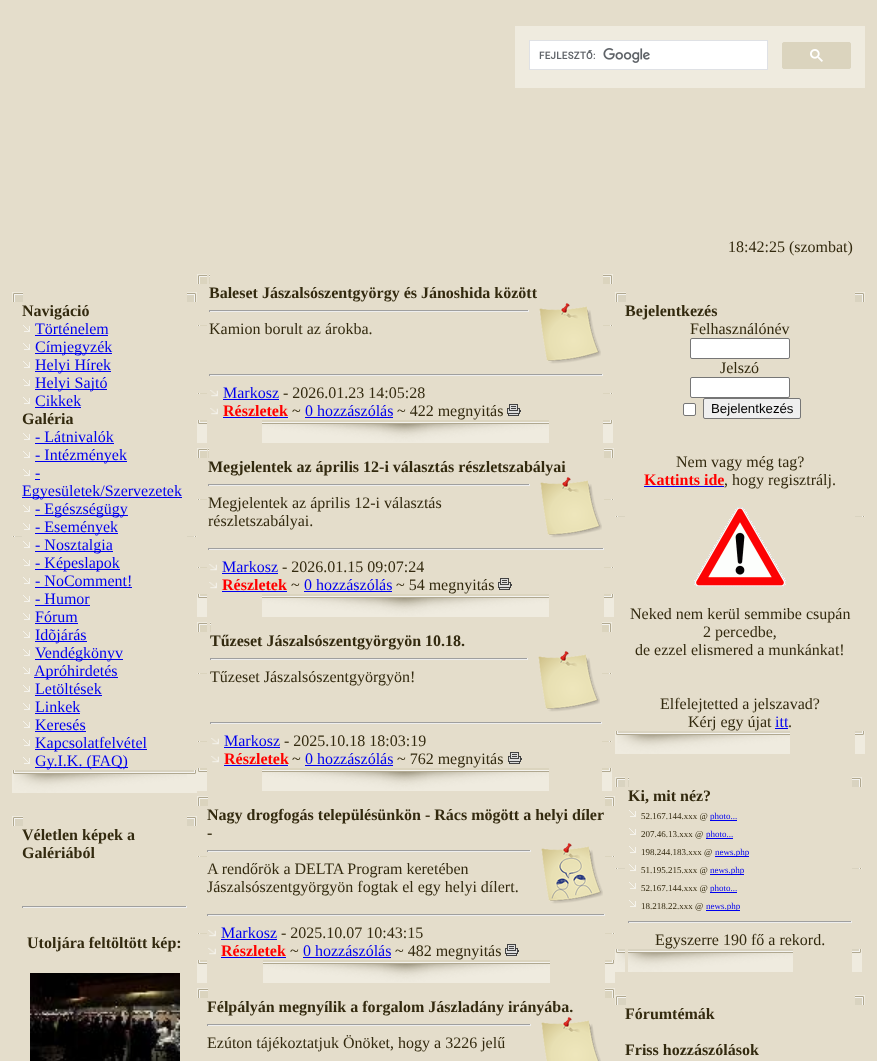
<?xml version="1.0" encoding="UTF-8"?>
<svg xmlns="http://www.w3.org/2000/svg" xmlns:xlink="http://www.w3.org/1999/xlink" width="877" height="1061">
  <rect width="100%" height="100%" fill="#e4ddcb" />
  <rect x="515" y="26" width="350" height="62" fill="#efebdf" />
  <rect x="529.5" y="40.5" width="238" height="29" fill="#ffffff" stroke="#dfe1e5" />
  <image x="539" y="48" width="111" height="15" xlink:href="image1.png" />
  <rect x="782.5" y="42.5" width="68" height="26" rx="1.5" fill="#dbd4be" stroke="#dbd4be" />
  <image x="810" y="49" width="13" height="13" xlink:href="image2.png" />
  <image x="12" y="292" width="10" height="10" xlink:href="image3.png" />
  <image x="22" y="292" width="1" height="10" xlink:href="image4.png" />
  <image x="187" y="292" width="10" height="10" xlink:href="image5.png" />
  <image x="12" y="536" width="10" height="1" xlink:href="image6.png" />
  <image x="23" y="325" width="7" height="7" xlink:href="image7.png" />
  <rect x="35" y="335" width="73" height="1" fill="#0000ee" />
  <image x="23" y="343" width="7" height="7" xlink:href="image7.png" />
  <rect x="35" y="353" width="77" height="1" fill="#0000ee" />
  <image x="23" y="361" width="7" height="7" xlink:href="image7.png" />
  <rect x="35" y="371" width="76" height="1" fill="#0000ee" />
  <image x="23" y="379" width="7" height="7" xlink:href="image7.png" />
  <rect x="35" y="389" width="72" height="1" fill="#0000ee" />
  <image x="23" y="397" width="7" height="7" xlink:href="image7.png" />
  <rect x="35" y="407" width="46" height="1" fill="#0000ee" />
  <image x="23" y="433" width="7" height="7" xlink:href="image7.png" />
  <rect x="35" y="443" width="79" height="1" fill="#0000ee" />
  <image x="23" y="451" width="7" height="7" xlink:href="image7.png" />
  <rect x="35" y="461" width="92" height="1" fill="#0000ee" />
  <image x="23" y="469" width="7" height="7" xlink:href="image7.png" />
  <rect x="35" y="479" width="5" height="1" fill="#0000ee" />
  <rect x="22" y="497" width="160" height="1" fill="#0000ee" />
  <image x="23" y="505" width="7" height="7" xlink:href="image7.png" />
  <rect x="35" y="515" width="93" height="1" fill="#0000ee" />
  <image x="23" y="523" width="7" height="7" xlink:href="image7.png" />
  <rect x="35" y="533" width="83" height="1" fill="#0000ee" />
  <image x="23" y="541" width="7" height="7" xlink:href="image7.png" />
  <rect x="35" y="551" width="78" height="1" fill="#0000ee" />
  <image x="23" y="559" width="7" height="7" xlink:href="image7.png" />
  <rect x="35" y="569" width="85" height="1" fill="#0000ee" />
  <image x="23" y="577" width="7" height="7" xlink:href="image7.png" />
  <rect x="35" y="587" width="97" height="1" fill="#0000ee" />
  <image x="23" y="595" width="7" height="7" xlink:href="image7.png" />
  <rect x="35" y="605" width="55" height="1" fill="#0000ee" />
  <image x="23" y="613" width="7" height="7" xlink:href="image7.png" />
  <rect x="35" y="623" width="43" height="1" fill="#0000ee" />
  <image x="23" y="631" width="7" height="7" xlink:href="image7.png" />
  <rect x="35" y="641" width="52" height="1" fill="#0000ee" />
  <image x="23" y="649" width="7" height="7" xlink:href="image7.png" />
  <rect x="35" y="659" width="88" height="1" fill="#0000ee" />
  <image x="23" y="667" width="7" height="7" xlink:href="image7.png" />
  <rect x="34" y="677" width="84" height="1" fill="#0000ee" />
  <image x="23" y="685" width="7" height="7" xlink:href="image7.png" />
  <rect x="35" y="695" width="67" height="1" fill="#0000ee" />
  <image x="23" y="703" width="7" height="7" xlink:href="image7.png" />
  <rect x="35" y="713" width="45" height="1" fill="#0000ee" />
  <image x="23" y="721" width="7" height="7" xlink:href="image7.png" />
  <rect x="35" y="731" width="51" height="1" fill="#0000ee" />
  <image x="23" y="739" width="7" height="7" xlink:href="image7.png" />
  <rect x="35" y="749" width="112" height="1" fill="#0000ee" />
  <image x="23" y="757" width="7" height="7" xlink:href="image7.png" />
  <rect x="35" y="767" width="93" height="1" fill="#0000ee" />
  <image x="187" y="536" width="10" height="1" xlink:href="image8.png" />
  <image x="12" y="770" width="10" height="23" xlink:href="image9.png" />
  <image x="22" y="770" width="165" height="23" xlink:href="image10.png" />
  <image x="187" y="770" width="10" height="23" xlink:href="image11.png" />
  <image x="12" y="816" width="10" height="10" xlink:href="image3.png" />
  <image x="22" y="816" width="1" height="10" xlink:href="image4.png" />
  <image x="187" y="816" width="10" height="10" xlink:href="image5.png" />
  <rect x="22" y="906" width="165" height="1" fill="#9f9f9f" />
  <rect x="186" y="906" width="1" height="2" fill="#eeeeee" />
  <rect x="22" y="907" width="165" height="1" fill="#eeeeee" />
  <rect x="22" y="906" width="1" height="2" fill="#9f9f9f" />
  <image x="30" y="973" width="150" height="88" xlink:href="image12.png" />
  <image x="197" y="274" width="10" height="10" xlink:href="image13.png" />
  <image x="209" y="274" width="1" height="10" xlink:href="image14.png" />
  <image x="603" y="274" width="10" height="10" xlink:href="image15.png" />
  <image x="197" y="325" width="10" height="1" xlink:href="image16.png" />
  <rect x="209" y="310" width="320" height="1" fill="#9f9f9f" />
  <rect x="528" y="310" width="1" height="2" fill="#eeeeee" />
  <rect x="209" y="311" width="320" height="1" fill="#eeeeee" />
  <rect x="209" y="310" width="1" height="2" fill="#9f9f9f" />
  <image x="539" y="303" width="62" height="61" xlink:href="image17.png" />
  <image x="603" y="325" width="10" height="1" xlink:href="image18.png" />
  <image x="197" y="393" width="10" height="1" xlink:href="image16.png" />
  <rect x="209" y="374" width="394" height="1" fill="#9f9f9f" />
  <rect x="602" y="374" width="1" height="2" fill="#eeeeee" />
  <rect x="209" y="375" width="394" height="1" fill="#eeeeee" />
  <rect x="209" y="374" width="1" height="2" fill="#9f9f9f" />
  <image x="210" y="390" width="8" height="7" xlink:href="image19.png" />
  <rect x="223" y="399" width="56" height="1" fill="#0000ee" />
  <image x="210" y="408" width="8" height="7" xlink:href="image19.png" />
  <rect x="223" y="417" width="65" height="1" fill="#0000ee" />
  <rect x="305" y="417" width="88" height="1" fill="#0000ee" />
  <image x="507" y="404" width="14" height="12" xlink:href="image20.png" />
  <image x="603" y="393" width="10" height="1" xlink:href="image18.png" />
  <image x="197" y="420" width="10" height="23" xlink:href="image21.png" />
  <image x="262" y="420" width="287" height="23" xlink:href="image22.png" />
  <image x="603" y="420" width="10" height="23" xlink:href="image23.png" />
  <image x="197" y="448" width="10" height="10" xlink:href="image13.png" />
  <image x="208" y="448" width="1" height="10" xlink:href="image14.png" />
  <image x="604" y="448" width="10" height="10" xlink:href="image15.png" />
  <image x="197" y="499" width="10" height="1" xlink:href="image16.png" />
  <rect x="208" y="484" width="322" height="1" fill="#9f9f9f" />
  <rect x="529" y="484" width="1" height="2" fill="#eeeeee" />
  <rect x="208" y="485" width="322" height="1" fill="#eeeeee" />
  <rect x="208" y="484" width="1" height="2" fill="#9f9f9f" />
  <image x="540" y="477" width="62" height="61" xlink:href="image17.png" />
  <image x="604" y="499" width="10" height="1" xlink:href="image18.png" />
  <image x="197" y="567" width="10" height="1" xlink:href="image16.png" />
  <rect x="208" y="548" width="396" height="1" fill="#9f9f9f" />
  <rect x="603" y="548" width="1" height="2" fill="#eeeeee" />
  <rect x="208" y="549" width="396" height="1" fill="#eeeeee" />
  <rect x="208" y="548" width="1" height="2" fill="#9f9f9f" />
  <image x="209" y="564" width="8" height="7" xlink:href="image19.png" />
  <rect x="222" y="573" width="56" height="1" fill="#0000ee" />
  <image x="209" y="582" width="8" height="7" xlink:href="image19.png" />
  <rect x="222" y="591" width="65" height="1" fill="#0000ee" />
  <rect x="304" y="591" width="88" height="1" fill="#0000ee" />
  <image x="498" y="578" width="14" height="12" xlink:href="image20.png" />
  <image x="604" y="567" width="10" height="1" xlink:href="image18.png" />
  <image x="197" y="594" width="10" height="23" xlink:href="image21.png" />
  <image x="262" y="594" width="287" height="23" xlink:href="image22.png" />
  <image x="604" y="594" width="10" height="23" xlink:href="image23.png" />
  <image x="197" y="622" width="10" height="10" xlink:href="image13.png" />
  <image x="210" y="622" width="1" height="10" xlink:href="image14.png" />
  <image x="602" y="622" width="10" height="10" xlink:href="image15.png" />
  <image x="197" y="673" width="10" height="1" xlink:href="image16.png" />
  <rect x="210" y="658" width="318" height="1" fill="#9f9f9f" />
  <rect x="527" y="658" width="1" height="2" fill="#eeeeee" />
  <rect x="210" y="659" width="318" height="1" fill="#eeeeee" />
  <rect x="210" y="658" width="1" height="2" fill="#9f9f9f" />
  <image x="538" y="651" width="62" height="61" xlink:href="image17.png" />
  <image x="602" y="673" width="10" height="1" xlink:href="image18.png" />
  <image x="197" y="741" width="10" height="1" xlink:href="image16.png" />
  <rect x="210" y="722" width="392" height="1" fill="#9f9f9f" />
  <rect x="601" y="722" width="1" height="2" fill="#eeeeee" />
  <rect x="210" y="723" width="392" height="1" fill="#eeeeee" />
  <rect x="210" y="722" width="1" height="2" fill="#9f9f9f" />
  <image x="211" y="738" width="8" height="7" xlink:href="image19.png" />
  <rect x="224" y="747" width="56" height="1" fill="#0000ee" />
  <image x="211" y="756" width="8" height="7" xlink:href="image19.png" />
  <rect x="224" y="765" width="64" height="1" fill="#0000ee" />
  <rect x="305" y="765" width="88" height="1" fill="#0000ee" />
  <image x="508" y="752" width="14" height="12" xlink:href="image20.png" />
  <image x="602" y="741" width="10" height="1" xlink:href="image18.png" />
  <image x="197" y="768" width="10" height="23" xlink:href="image21.png" />
  <image x="262" y="768" width="287" height="23" xlink:href="image22.png" />
  <image x="602" y="768" width="10" height="23" xlink:href="image23.png" />
  <image x="197" y="796" width="10" height="10" xlink:href="image13.png" />
  <image x="207" y="796" width="1" height="10" xlink:href="image14.png" />
  <image x="605" y="796" width="10" height="10" xlink:href="image15.png" />
  <image x="197" y="856" width="10" height="1" xlink:href="image16.png" />
  <rect x="207" y="850" width="324" height="1" fill="#9f9f9f" />
  <rect x="530" y="850" width="1" height="2" fill="#eeeeee" />
  <rect x="207" y="851" width="324" height="1" fill="#eeeeee" />
  <rect x="207" y="850" width="1" height="2" fill="#9f9f9f" />
  <image x="541" y="843" width="62" height="61" xlink:href="image24.png" />
  <image x="605" y="856" width="10" height="1" xlink:href="image18.png" />
  <image x="197" y="933" width="10" height="1" xlink:href="image16.png" />
  <rect x="207" y="914" width="398" height="1" fill="#9f9f9f" />
  <rect x="604" y="914" width="1" height="2" fill="#eeeeee" />
  <rect x="207" y="915" width="398" height="1" fill="#eeeeee" />
  <rect x="207" y="914" width="1" height="2" fill="#9f9f9f" />
  <image x="208" y="930" width="8" height="7" xlink:href="image25.png" />
  <rect x="221" y="939" width="56" height="1" fill="#0000ee" />
  <image x="208" y="948" width="8" height="7" xlink:href="image25.png" />
  <rect x="221" y="957" width="65" height="1" fill="#0000ee" />
  <rect x="303" y="957" width="88" height="1" fill="#0000ee" />
  <image x="505" y="944" width="14" height="12" xlink:href="image20.png" />
  <image x="605" y="933" width="10" height="1" xlink:href="image18.png" />
  <image x="197" y="960" width="10" height="23" xlink:href="image21.png" />
  <image x="263" y="960" width="287" height="23" xlink:href="image22.png" />
  <image x="605" y="960" width="10" height="23" xlink:href="image23.png" />
  <image x="197" y="988" width="10" height="10" xlink:href="image13.png" />
  <image x="207" y="988" width="1" height="10" xlink:href="image14.png" />
  <image x="605" y="988" width="10" height="10" xlink:href="image15.png" />
  <rect x="207" y="1024" width="324" height="1" fill="#9f9f9f" />
  <rect x="530" y="1024" width="1" height="2" fill="#eeeeee" />
  <rect x="207" y="1025" width="324" height="1" fill="#eeeeee" />
  <rect x="207" y="1024" width="1" height="2" fill="#9f9f9f" />
  <image x="541" y="1017" width="60" height="44" xlink:href="image26.png" />
  <image x="615" y="292" width="10" height="10" xlink:href="image3.png" />
  <image x="625" y="292" width="1" height="10" xlink:href="image4.png" />
  <image x="855" y="292" width="10" height="10" xlink:href="image5.png" />
  <image x="615" y="516" width="10" height="1" xlink:href="image6.png" />
  <rect x="690.5" y="338.5" width="99" height="20" rx="1.5" fill="#ffffff" stroke="#767676" />
  <rect x="690.5" y="377.5" width="99" height="20" rx="1.5" fill="#ffffff" stroke="#767676" />
  <rect x="683.5" y="403.5" width="12" height="12" rx="1.5" fill="#ffffff" stroke="#767676" />
  <rect x="703.5" y="398.5" width="97" height="20" rx="1.5" fill="#efefef" stroke="#767676" />
  <rect x="644" y="486" width="80" height="1" fill="#0000ee" />
  <image x="694" y="507" width="92" height="80" xlink:href="image27.png" />
  <rect x="775" y="728" width="13" height="1" fill="#0000ee" />
  <image x="855" y="516" width="10" height="1" xlink:href="image8.png" />
  <image x="615" y="731" width="10" height="23" xlink:href="image9.png" />
  <image x="625" y="731" width="165" height="23" xlink:href="image10.png" />
  <image x="855" y="731" width="10" height="23" xlink:href="image11.png" />
  <image x="615" y="777" width="10" height="10" xlink:href="image3.png" />
  <image x="628" y="777" width="1" height="10" xlink:href="image4.png" />
  <image x="852" y="777" width="10" height="10" xlink:href="image5.png" />
  <image x="615" y="868" width="10" height="1" xlink:href="image6.png" />
  <image x="629" y="810" width="7" height="7" xlink:href="image7.png" />
  <rect x="710" y="820" width="27" height="1" fill="#0000ee" />
  <image x="629" y="828" width="7" height="7" xlink:href="image7.png" />
  <rect x="706" y="838" width="27" height="1" fill="#0000ee" />
  <image x="629" y="846" width="7" height="7" xlink:href="image7.png" />
  <rect x="715" y="856" width="34" height="1" fill="#0000ee" />
  <image x="629" y="864" width="7" height="7" xlink:href="image7.png" />
  <rect x="710" y="874" width="34" height="1" fill="#0000ee" />
  <image x="629" y="882" width="7" height="7" xlink:href="image7.png" />
  <rect x="710" y="892" width="27" height="1" fill="#0000ee" />
  <image x="629" y="900" width="7" height="7" xlink:href="image7.png" />
  <rect x="706" y="910" width="34" height="1" fill="#0000ee" />
  <rect x="628" y="921" width="224" height="1" fill="#9f9f9f" />
  <rect x="851" y="921" width="1" height="2" fill="#eeeeee" />
  <rect x="628" y="922" width="224" height="1" fill="#eeeeee" />
  <rect x="628" y="921" width="1" height="2" fill="#9f9f9f" />
  <image x="852" y="868" width="10" height="1" xlink:href="image8.png" />
  <image x="615" y="949" width="10" height="23" xlink:href="image9.png" />
  <image x="628" y="949" width="165" height="23" xlink:href="image10.png" />
  <image x="852" y="949" width="10" height="23" xlink:href="image11.png" />
  <image x="615" y="995" width="10" height="10" xlink:href="image3.png" />
  <image x="625" y="995" width="1" height="10" xlink:href="image4.png" />
  <image x="855" y="995" width="10" height="10" xlink:href="image5.png" />
  <text x="728" y="252" style="font-family: Liberation Serif; font-size: 16px; fill: #332a0f">18:42:25 (szombat)</text>
  <text x="22" y="316" style="font-family: Liberation Serif; font-size: 16px; font-weight: bold; fill: #332a0f">Navigáció</text>
  <text x="35" y="334" style="font-family: Liberation Serif; font-size: 16px; fill: #0000ee">Történelem</text>
  <text x="35" y="352" style="font-family: Liberation Serif; font-size: 16px; fill: #0000ee">Címjegyzék</text>
  <text x="35" y="370" style="font-family: Liberation Serif; font-size: 16px; fill: #0000ee">Helyi Hírek</text>
  <text x="35" y="388" style="font-family: Liberation Serif; font-size: 16px; fill: #0000ee">Helyi Sajtó</text>
  <text x="35" y="406" style="font-family: Liberation Serif; font-size: 16px; fill: #0000ee">Cikkek</text>
  <text x="22" y="424" style="font-family: Liberation Serif; font-size: 16px; font-weight: bold; fill: #332a0f">Galéria</text>
  <text x="35" y="442" style="font-family: Liberation Serif; font-size: 16px; fill: #0000ee">- Látnivalók</text>
  <text x="35" y="460" style="font-family: Liberation Serif; font-size: 16px; fill: #0000ee">- Intézmények</text>
  <text x="35" y="478" style="font-family: Liberation Serif; font-size: 16px; fill: #0000ee">-</text>
  <text x="22" y="496" style="font-family: Liberation Serif; font-size: 16px; fill: #0000ee">Egyesületek/Szervezetek</text>
  <text x="35" y="514" style="font-family: Liberation Serif; font-size: 16px; fill: #0000ee">- Egészségügy</text>
  <text x="35" y="532" style="font-family: Liberation Serif; font-size: 16px; fill: #0000ee">- Események</text>
  <text x="35" y="550" style="font-family: Liberation Serif; font-size: 16px; fill: #0000ee">- Nosztalgia</text>
  <text x="35" y="568" style="font-family: Liberation Serif; font-size: 16px; fill: #0000ee">- Képeslapok</text>
  <text x="35" y="586" style="font-family: Liberation Serif; font-size: 16px; fill: #0000ee">- NoComment!</text>
  <text x="35" y="604" style="font-family: Liberation Serif; font-size: 16px; fill: #0000ee">- Humor</text>
  <text x="35" y="622" style="font-family: Liberation Serif; font-size: 16px; fill: #0000ee">Fórum</text>
  <text x="35" y="640" style="font-family: Liberation Serif; font-size: 16px; fill: #0000ee">Idõjárás</text>
  <text x="35" y="658" style="font-family: Liberation Serif; font-size: 16px; fill: #0000ee">Vendégkönyv</text>
  <text x="34" y="676" style="font-family: Liberation Serif; font-size: 16px; fill: #0000ee">Apróhirdetés</text>
  <text x="35" y="694" style="font-family: Liberation Serif; font-size: 16px; fill: #0000ee">Letöltések</text>
  <text x="35" y="712" style="font-family: Liberation Serif; font-size: 16px; fill: #0000ee">Linkek</text>
  <text x="35" y="730" style="font-family: Liberation Serif; font-size: 16px; fill: #0000ee">Keresés</text>
  <text x="35" y="748" style="font-family: Liberation Serif; font-size: 16px; fill: #0000ee">Kapcsolatfelvétel</text>
  <text x="35" y="766" style="font-family: Liberation Serif; font-size: 16px; fill: #0000ee">Gy.I.K. (FAQ)</text>
  <text x="22" y="840" style="font-family: Liberation Serif; font-size: 16px; font-weight: bold; fill: #332a0f">Véletlen képek a</text>
  <text x="22" y="858" style="font-family: Liberation Serif; font-size: 16px; font-weight: bold; fill: #332a0f">Galériából</text>
  <text x="27" y="948" style="font-family: Liberation Serif; font-size: 16px; font-weight: bold; fill: #332a0f">Utoljára feltöltött kép:</text>
  <text x="209" y="298" style="font-family: Liberation Serif; font-size: 16px; font-weight: bold; fill: #332a0f">Baleset Jászalsószentgyörgy és Jánoshida között</text>
  <text x="209" y="334" style="font-family: Liberation Serif; font-size: 16px; fill: #332a0f">Kamion borult az árokba.</text>
  <text x="223" y="398" style="font-family: Liberation Serif; font-size: 16px; fill: #0000ee">Markosz</text>
  <text x="283" y="398" style="font-family: Liberation Serif; font-size: 16px; fill: #332a0f">- 2026.01.23 14:05:28</text>
  <text x="223" y="416" style="font-family: Liberation Serif; font-size: 16px; font-weight: bold; fill: #ff0000">Részletek</text>
  <text x="292" y="416" style="font-family: Liberation Serif; font-size: 16px; fill: #332a0f">~</text>
  <text x="305" y="416" style="font-family: Liberation Serif; font-size: 16px; fill: #0000ee">0 hozzászólás</text>
  <text x="397" y="416" style="font-family: Liberation Serif; font-size: 16px; fill: #332a0f">~ 422 megnyitás</text>
  <text x="208" y="472" style="font-family: Liberation Serif; font-size: 16px; font-weight: bold; fill: #332a0f">Megjelentek az április 12-i választás részletszabályai</text>
  <text x="208" y="508" style="font-family: Liberation Serif; font-size: 16px; fill: #332a0f">Megjelentek az április 12-i választás</text>
  <text x="208" y="526" style="font-family: Liberation Serif; font-size: 16px; fill: #332a0f">részletszabályai.</text>
  <text x="222" y="572" style="font-family: Liberation Serif; font-size: 16px; fill: #0000ee">Markosz</text>
  <text x="282" y="572" style="font-family: Liberation Serif; font-size: 16px; fill: #332a0f">- 2026.01.15 09:07:24</text>
  <text x="222" y="590" style="font-family: Liberation Serif; font-size: 16px; font-weight: bold; fill: #ff0000">Részletek</text>
  <text x="291" y="590" style="font-family: Liberation Serif; font-size: 16px; fill: #332a0f">~</text>
  <text x="304" y="590" style="font-family: Liberation Serif; font-size: 16px; fill: #0000ee">0 hozzászólás</text>
  <text x="396" y="590" style="font-family: Liberation Serif; font-size: 16px; fill: #332a0f">~ 54 megnyitás</text>
  <text x="210" y="646" style="font-family: Liberation Serif; font-size: 16px; font-weight: bold; fill: #332a0f">Tűzeset Jászalsószentgyörgyön 10.18.</text>
  <text x="210" y="682" style="font-family: Liberation Serif; font-size: 16px; fill: #332a0f">Tűzeset Jászalsószentgyörgyön!</text>
  <text x="224" y="746" style="font-family: Liberation Serif; font-size: 16px; fill: #0000ee">Markosz</text>
  <text x="284" y="746" style="font-family: Liberation Serif; font-size: 16px; fill: #332a0f">- 2025.10.18 18:03:19</text>
  <text x="224" y="764" style="font-family: Liberation Serif; font-size: 16px; font-weight: bold; fill: #ff0000">Részletek</text>
  <text x="292" y="764" style="font-family: Liberation Serif; font-size: 16px; fill: #332a0f">~</text>
  <text x="305" y="764" style="font-family: Liberation Serif; font-size: 16px; fill: #0000ee">0 hozzászólás</text>
  <text x="397" y="764" style="font-family: Liberation Serif; font-size: 16px; fill: #332a0f">~ 762 megnyitás</text>
  <text x="207" y="820" style="font-family: Liberation Serif; font-size: 16px; font-weight: bold; fill: #332a0f">Nagy drogfogás településünkön - Rács mögött a helyi díler</text>
  <text x="207" y="838" style="font-family: Liberation Serif; font-size: 16px; font-weight: bold; fill: #332a0f">-</text>
  <text x="207" y="874" style="font-family: Liberation Serif; font-size: 16px; fill: #332a0f">A rendőrök a DELTA Program keretében</text>
  <text x="207" y="892" style="font-family: Liberation Serif; font-size: 16px; fill: #332a0f">Jászalsószentgyörgyön fogtak el egy helyi dílert.</text>
  <text x="221" y="938" style="font-family: Liberation Serif; font-size: 16px; fill: #0000ee">Markosz</text>
  <text x="281" y="938" style="font-family: Liberation Serif; font-size: 16px; fill: #332a0f">- 2025.10.07 10:43:15</text>
  <text x="221" y="956" style="font-family: Liberation Serif; font-size: 16px; font-weight: bold; fill: #ff0000">Részletek</text>
  <text x="290" y="956" style="font-family: Liberation Serif; font-size: 16px; fill: #332a0f">~</text>
  <text x="303" y="956" style="font-family: Liberation Serif; font-size: 16px; fill: #0000ee">0 hozzászólás</text>
  <text x="395" y="956" style="font-family: Liberation Serif; font-size: 16px; fill: #332a0f">~ 482 megnyitás</text>
  <text x="207" y="1012" style="font-family: Liberation Serif; font-size: 16px; font-weight: bold; fill: #332a0f">Félpályán megnyílik a forgalom Jászladány irányába.</text>
  <text x="207" y="1048" style="font-family: Liberation Serif; font-size: 16px; fill: #332a0f">Ezúton tájékoztatjuk Önöket, hogy a 3226 jelű</text>
  <text x="625" y="316" style="font-family: Liberation Serif; font-size: 16px; font-weight: bold; fill: #332a0f">Bejelentkezés</text>
  <text x="690" y="334" style="font-family: Liberation Serif; font-size: 16px; fill: #332a0f">Felhasználónév</text>
  <text x="720" y="373" style="font-family: Liberation Serif; font-size: 16px; fill: #332a0f">Jelszó</text>
  <text x="711" y="413" style="font-family: Liberation Sans; font-size: 13.25px; fill: #000000">Bejelentkezés</text>
  <text x="676" y="467" style="font-family: Liberation Serif; font-size: 16px; fill: #332a0f">Nem vagy még tag?</text>
  <text x="644" y="485" style="font-family: Liberation Serif; font-size: 16px; font-weight: bold; fill: #ff0000">Kattints ide</text>
  <text x="724" y="485" style="font-family: Liberation Serif; font-size: 16px; fill: #332a0f">, hogy regisztrálj.</text>
  <text x="630" y="619" style="font-family: Liberation Serif; font-size: 16px; fill: #332a0f">Neked nem kerül semmibe csupán</text>
  <text x="703" y="637" style="font-family: Liberation Serif; font-size: 16px; fill: #332a0f">2 percedbe,</text>
  <text x="635" y="655" style="font-family: Liberation Serif; font-size: 16px; fill: #332a0f">de ezzel elismered a munkánkat!</text>
  <text x="660" y="709" style="font-family: Liberation Serif; font-size: 16px; fill: #332a0f">Elfelejtetted a jelszavad?</text>
  <text x="688" y="727" style="font-family: Liberation Serif; font-size: 16px; fill: #332a0f">Kérj egy újat</text>
  <text x="775" y="727" style="font-family: Liberation Serif; font-size: 16px; fill: #0000ee">itt</text>
  <text x="788" y="727" style="font-family: Liberation Serif; font-size: 16px; fill: #332a0f">.</text>
  <text x="628" y="801" style="font-family: Liberation Serif; font-size: 16px; font-weight: bold; fill: #332a0f">Ki, mit néz?</text>
  <text x="641" y="819" style="font-family: Liberation Serif; font-size: 9px; fill: #332a0f">52.167.144.xxx @</text>
  <text x="710" y="819" style="font-family: Liberation Serif; font-size: 9px; fill: #0000ee">photo...</text>
  <text x="641" y="837" style="font-family: Liberation Serif; font-size: 9px; fill: #332a0f">207.46.13.xxx @</text>
  <text x="706" y="837" style="font-family: Liberation Serif; font-size: 9px; fill: #0000ee">photo...</text>
  <text x="641" y="855" style="font-family: Liberation Serif; font-size: 9px; fill: #332a0f">198.244.183.xxx @</text>
  <text x="715" y="855" style="font-family: Liberation Serif; font-size: 9px; fill: #0000ee">news.php</text>
  <text x="641" y="873" style="font-family: Liberation Serif; font-size: 9px; fill: #332a0f">51.195.215.xxx @</text>
  <text x="710" y="873" style="font-family: Liberation Serif; font-size: 9px; fill: #0000ee">news.php</text>
  <text x="641" y="891" style="font-family: Liberation Serif; font-size: 9px; fill: #332a0f">52.167.144.xxx @</text>
  <text x="710" y="891" style="font-family: Liberation Serif; font-size: 9px; fill: #0000ee">photo...</text>
  <text x="641" y="909" style="font-family: Liberation Serif; font-size: 9px; fill: #332a0f">18.218.22.xxx @</text>
  <text x="706" y="909" style="font-family: Liberation Serif; font-size: 9px; fill: #0000ee">news.php</text>
  <text x="655" y="945" style="font-family: Liberation Serif; font-size: 16px; fill: #332a0f">Egyszerre 190 fő a rekord.</text>
  <text x="625" y="1019" style="font-family: Liberation Serif; font-size: 16px; font-weight: bold; fill: #332a0f">Fórumtémák</text>
  <text x="625" y="1055" style="font-family: Liberation Serif; font-size: 16px; font-weight: bold; fill: #332a0f">Friss hozzászólások</text>
</svg>
